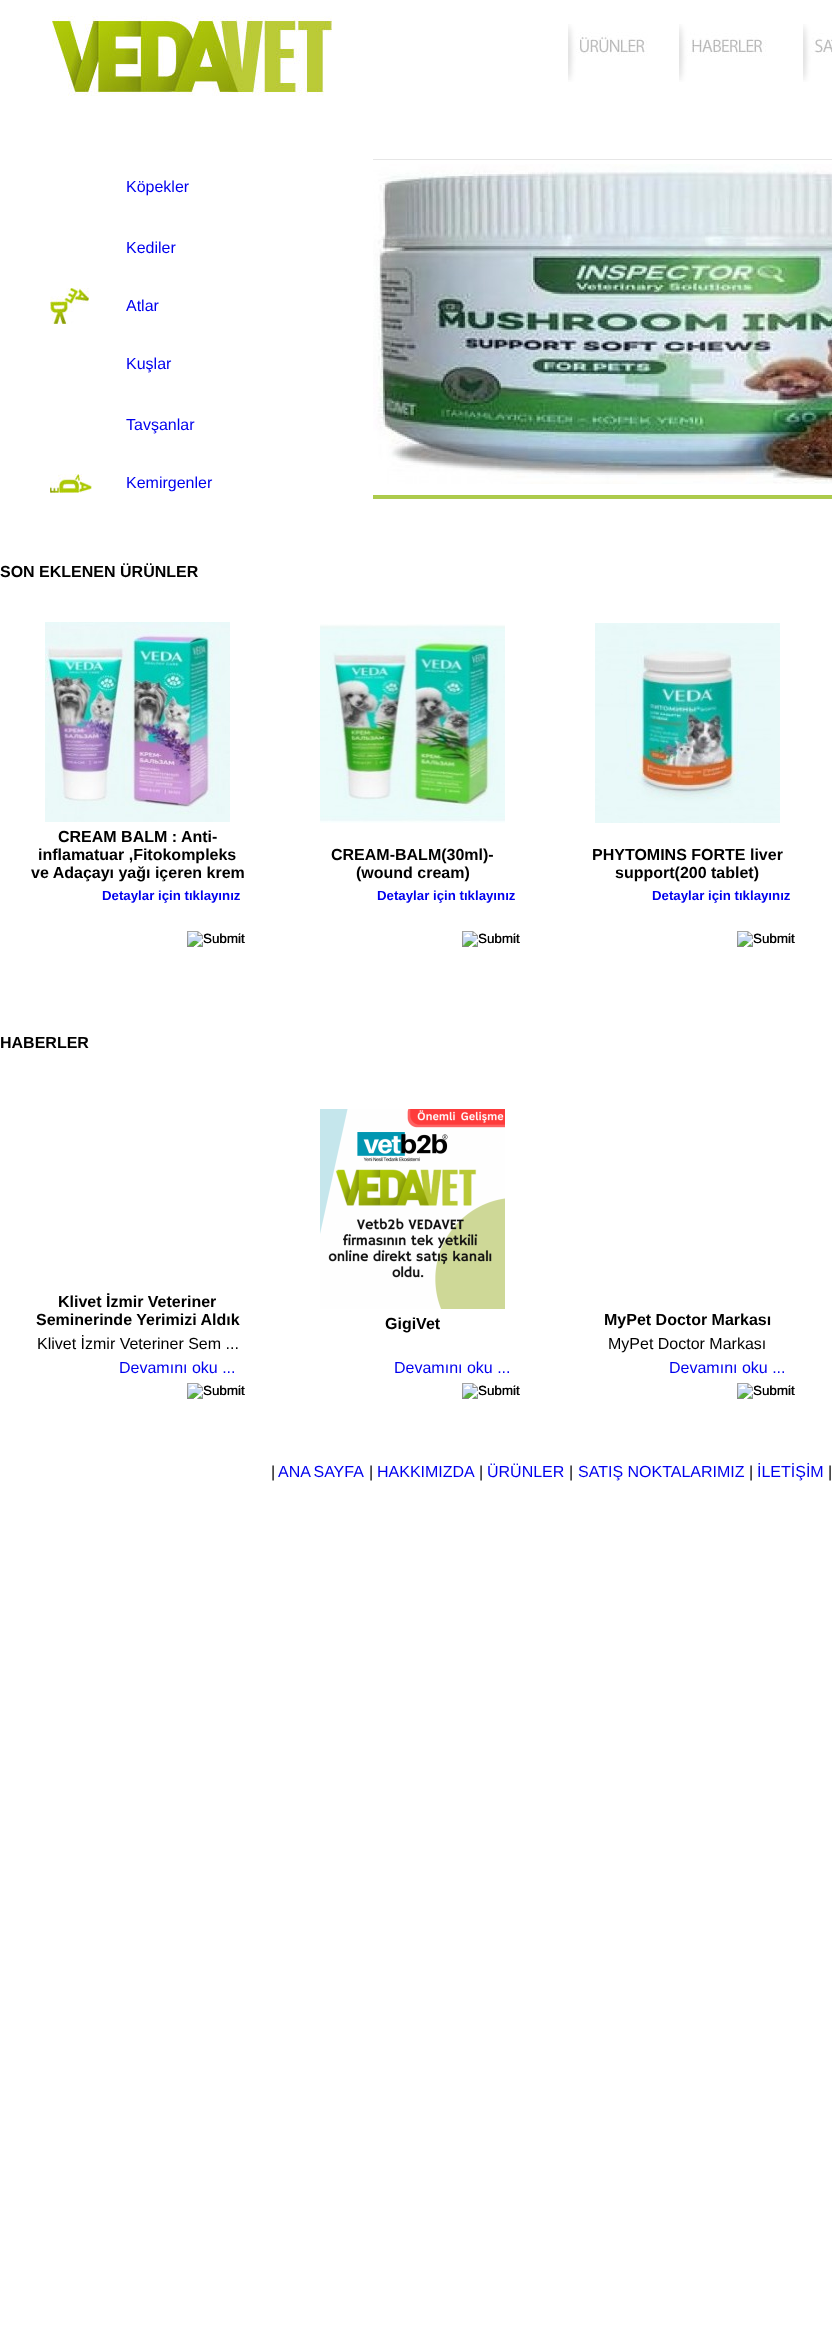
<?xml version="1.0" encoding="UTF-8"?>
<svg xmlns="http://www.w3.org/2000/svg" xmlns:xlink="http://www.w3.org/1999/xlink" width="832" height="2338">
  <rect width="100%" height="100%" fill="#ffffff" />
  <image x="52" y="16" width="280" height="80" xlink:href="image1.png" />
  <image x="568" y="24" width="80" height="58" xlink:href="image2.png" />
  <image x="679" y="24" width="88" height="58" xlink:href="image3.png" />
  <image x="803" y="24" width="29" height="58" xlink:href="image4.png" />
  <image x="50" y="288" width="39" height="36" xlink:href="image5.png" />
  <image x="50" y="474" width="42" height="19" xlink:href="image6.png" />
  <rect x="373" y="159" width="459" height="1" fill="#e6e6e6" />
  <image x="373" y="164" width="459" height="320" xlink:href="image7.png" />
  <image x="373" y="495" width="459" height="4" xlink:href="image8.png" />
  <image x="45" y="622" width="185" height="200" xlink:href="image9.png" />
  <image x="187" y="931" width="58" height="16" xlink:href="image10.png" />
  <image x="320" y="624" width="185" height="199" xlink:href="image11.png" />
  <image x="462" y="931" width="58" height="16" xlink:href="image10.png" />
  <image x="595" y="623" width="185" height="200" xlink:href="image12.png" />
  <image x="737" y="931" width="58" height="16" xlink:href="image10.png" />
  <image x="187" y="1383" width="58" height="16" xlink:href="image10.png" />
  <image x="320" y="1109" width="185" height="200" xlink:href="image13.png" />
  <image x="462" y="1383" width="58" height="16" xlink:href="image10.png" />
  <image x="737" y="1383" width="58" height="16" xlink:href="image10.png" />
  <text x="126" y="192" style="font-family: Liberation Sans; font-size: 16px; fill: #0000ee">Köpekler</text>
  <text x="126" y="253" style="font-family: Liberation Sans; font-size: 16px; fill: #0000ee">Kediler</text>
  <text x="126" y="311" style="font-family: Liberation Sans; font-size: 16px; fill: #0000ee">Atlar</text>
  <text x="126" y="369" style="font-family: Liberation Sans; font-size: 16px; fill: #0000ee">Kuşlar</text>
  <text x="126" y="430" style="font-family: Liberation Sans; font-size: 16px; fill: #0000ee">Tavşanlar</text>
  <text x="126" y="488" style="font-family: Liberation Sans; font-size: 16px; fill: #0000ee">Kemirgenler</text>
  <text x="0" y="577" style="font-family: Liberation Sans; font-size: 16px; font-weight: bold; fill: #000000">SON EKLENEN ÜRÜNLER</text>
  <text x="58" y="842" style="font-family: Liberation Sans; font-size: 16px; font-weight: bold; fill: #000000">CREAM BALM : Anti-</text>
  <text x="38" y="860" style="font-family: Liberation Sans; font-size: 16px; font-weight: bold; fill: #000000">inflamatuar ,Fitokompleks</text>
  <text x="31" y="878" style="font-family: Liberation Sans; font-size: 16px; font-weight: bold; fill: #000000">ve Adaçayı yağı içeren krem</text>
  <text x="102" y="900" style="font-family: Liberation Sans; font-size: 13.25px; font-weight: bold; fill: #0000ee">Detaylar için tıklayınız</text>
  <text x="203" y="943" style="font-family: Liberation Sans; font-size: 13.5px; fill: #000000">Submit</text>
  <text x="331" y="860" style="font-family: Liberation Sans; font-size: 16px; font-weight: bold; fill: #000000">CREAM-BALM(30ml)-</text>
  <text x="356" y="878" style="font-family: Liberation Sans; font-size: 16px; font-weight: bold; fill: #000000">(wound cream)</text>
  <text x="377" y="900" style="font-family: Liberation Sans; font-size: 13.25px; font-weight: bold; fill: #0000ee">Detaylar için tıklayınız</text>
  <text x="478" y="943" style="font-family: Liberation Sans; font-size: 13.5px; fill: #000000">Submit</text>
  <text x="592" y="860" style="font-family: Liberation Sans; font-size: 16px; font-weight: bold; fill: #000000">PHYTOMINS FORTE liver</text>
  <text x="615" y="878" style="font-family: Liberation Sans; font-size: 16px; font-weight: bold; fill: #000000">support(200 tablet)</text>
  <text x="652" y="900" style="font-family: Liberation Sans; font-size: 13.25px; font-weight: bold; fill: #0000ee">Detaylar için tıklayınız</text>
  <text x="753" y="943" style="font-family: Liberation Sans; font-size: 13.5px; fill: #000000">Submit</text>
  <text x="0" y="1048" style="font-family: Liberation Sans; font-size: 16px; font-weight: bold; fill: #000000">HABERLER</text>
  <text x="58" y="1307" style="font-family: Liberation Sans; font-size: 16px; font-weight: bold; fill: #000000">Klivet İzmir Veteriner</text>
  <text x="36" y="1325" style="font-family: Liberation Sans; font-size: 16px; font-weight: bold; fill: #000000">Seminerinde Yerimizi Aldık</text>
  <text x="37" y="1349" style="font-family: Liberation Sans; font-size: 16px; fill: #000000">Klivet İzmir Veteriner Sem ...</text>
  <text x="119" y="1373" style="font-family: Liberation Sans; font-size: 16px; fill: #0000ee">Devamını oku ...</text>
  <text x="203" y="1395" style="font-family: Liberation Sans; font-size: 13.5px; fill: #000000">Submit</text>
  <text x="385" y="1329" style="font-family: Liberation Sans; font-size: 16px; font-weight: bold; fill: #000000">GigiVet</text>
  <text x="394" y="1373" style="font-family: Liberation Sans; font-size: 16px; fill: #0000ee">Devamını oku ...</text>
  <text x="478" y="1395" style="font-family: Liberation Sans; font-size: 13.5px; fill: #000000">Submit</text>
  <text x="604" y="1325" style="font-family: Liberation Sans; font-size: 16px; font-weight: bold; fill: #000000">MyPet Doctor Markası</text>
  <text x="608" y="1349" style="font-family: Liberation Sans; font-size: 16px; fill: #000000">MyPet Doctor Markası</text>
  <text x="669" y="1373" style="font-family: Liberation Sans; font-size: 16px; fill: #0000ee">Devamını oku ...</text>
  <text x="753" y="1395" style="font-family: Liberation Sans; font-size: 13.5px; fill: #000000">Submit</text>
  <text x="271" y="1477" style="font-family: Liberation Sans; font-size: 16px; fill: #000000">|</text>
  <text x="278" y="1477" word-spacing="-1" style="font-family: Liberation Sans; font-size: 16px; fill: #0000ee">ANA SAYFA</text>
  <text x="369" y="1477" style="font-family: Liberation Sans; font-size: 16px; fill: #000000">|</text>
  <text x="377" y="1477" style="font-family: Liberation Sans; font-size: 16px; fill: #0000ee">HAKKIMIZDA</text>
  <text x="479" y="1477" style="font-family: Liberation Sans; font-size: 16px; fill: #000000">|</text>
  <text x="487" y="1477" style="font-family: Liberation Sans; font-size: 16px; fill: #0000ee">ÜRÜNLER</text>
  <text x="569" y="1477" style="font-family: Liberation Sans; font-size: 16px; fill: #000000">|</text>
  <text x="578" y="1477" style="font-family: Liberation Sans; font-size: 16px; fill: #0000ee">SATIŞ NOKTALARIMIZ</text>
  <text x="749" y="1477" style="font-family: Liberation Sans; font-size: 16px; fill: #000000">|</text>
  <text x="757" y="1477" style="font-family: Liberation Sans; font-size: 16px; fill: #0000ee">İLETİŞİM</text>
  <text x="828" y="1477" style="font-family: Liberation Sans; font-size: 16px; fill: #000000">|</text>
</svg>
